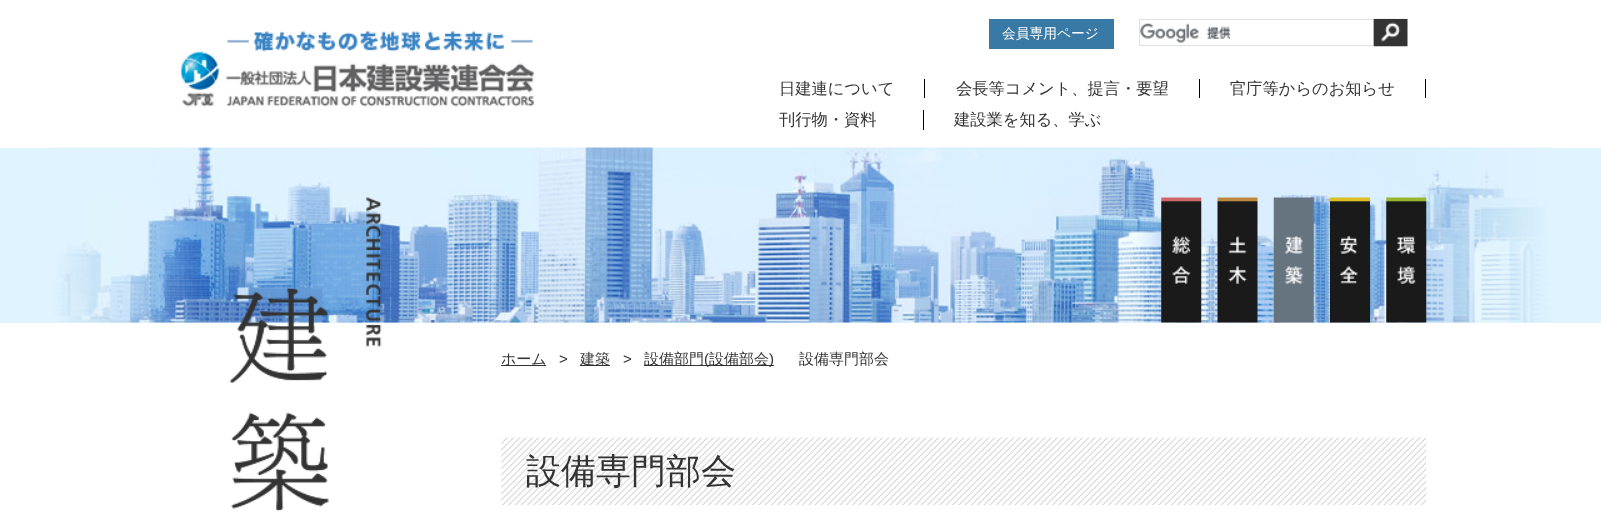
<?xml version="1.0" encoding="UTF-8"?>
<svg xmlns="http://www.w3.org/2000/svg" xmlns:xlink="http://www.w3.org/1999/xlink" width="1601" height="515">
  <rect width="100%" height="100%" fill="#ffffff" />
  <rect x="989" y="19" width="125" height="30" fill="#3979a5" />
  <rect x="1139.5" y="19.5" width="234" height="26" fill="none" stroke="#dfe1e5" />
  <image x="1140" y="23" width="91" height="20" xlink:href="image1.png" />
  <image x="1373" y="18" width="35" height="29" xlink:href="image2.png" />
  <image x="181" y="31" width="354" height="76" xlink:href="image3.png" />
  <rect x="924" y="79" width="1" height="19" fill="#000000" />
  <rect x="1199" y="79" width="1" height="19" fill="#000000" />
  <rect x="1425" y="79" width="1" height="19" fill="#000000" />
  <rect x="923" y="110" width="1" height="20" fill="#000000" />
  <rect y="148" width="1601" height="175" fill="#dff4fe" />
  <image x="51" y="147" width="1501" height="176" xlink:href="image4.png" />
  <image x="1161" y="197" width="41" height="126" xlink:href="image5.png" />
  <image x="1217" y="197" width="41" height="126" xlink:href="image6.png" />
  <image x="1273" y="197" width="41" height="126" xlink:href="image7.png" />
  <image x="1330" y="197" width="40" height="126" xlink:href="image8.png" />
  <image x="1386" y="197" width="41" height="126" xlink:href="image9.png" />
  <image x="229" y="197" width="153" height="314" xlink:href="image10.png" />
  <rect x="501" y="365" width="45" height="1" fill="#333333" />
  <rect x="580" y="365" width="30" height="1" fill="#333333" />
  <rect x="644" y="365" width="130" height="1" fill="#333333" />
  <image x="501" y="437" width="926" height="68" xlink:href="image11.png" />
  <text x="1002" y="38" style="font-family: WenQuanYi Zen Hei; font-size: 13.75px; font-weight: 500; fill: #ffffff">会員専用ページ</text>
  <text x="779" y="94" style="font-family: WenQuanYi Zen Hei; font-size: 16.25px; font-weight: 500; fill: #333333">日建連について</text>
  <text x="956" y="94" style="font-family: WenQuanYi Zen Hei; font-size: 16.25px; font-weight: 500; fill: #333333">会長等コメント、提言・要望</text>
  <text x="1230" y="94" style="font-family: WenQuanYi Zen Hei; font-size: 16.25px; font-weight: 500; fill: #333333">官庁等からのお知らせ</text>
  <text x="779" y="125" style="font-family: WenQuanYi Zen Hei; font-size: 16.25px; font-weight: 500; fill: #333333">刊行物・資料</text>
  <text x="954" y="125" style="font-family: WenQuanYi Zen Hei; font-size: 16.25px; font-weight: 500; fill: #333333">建設業を知る、学ぶ</text>
  <text x="501" y="364" style="font-family: WenQuanYi Zen Hei; font-size: 15px; font-weight: 500; fill: #333333">ホーム</text>
  <text x="559" y="364" style="font-family: Liberation Sans; font-size: 15px; fill: #333333">&gt;</text>
  <text x="580" y="364" style="font-family: WenQuanYi Zen Hei; font-size: 15px; font-weight: 500; fill: #333333">建築</text>
  <text x="623" y="364" style="font-family: Liberation Sans; font-size: 15px; fill: #333333">&gt;</text>
  <text x="644" y="364" style="font-family: WenQuanYi Zen Hei; font-size: 15px; font-weight: 500; fill: #333333">設備部門</text>
  <text x="704" y="364" style="font-family: Liberation Sans; font-size: 15px; fill: #333333">(</text>
  <text x="709" y="364" style="font-family: WenQuanYi Zen Hei; font-size: 15px; font-weight: 500; fill: #333333">設備部会</text>
  <text x="769" y="364" style="font-family: Liberation Sans; font-size: 15px; fill: #333333">)</text>
  <text x="799" y="364" style="font-family: WenQuanYi Zen Hei; font-size: 15px; font-weight: 500; fill: #333333">設備専門部会</text>
  <text x="526" y="483" style="font-family: WenQuanYi Zen Hei; font-size: 35px; font-weight: 500; fill: #333333">設備専門部会</text>
</svg>
